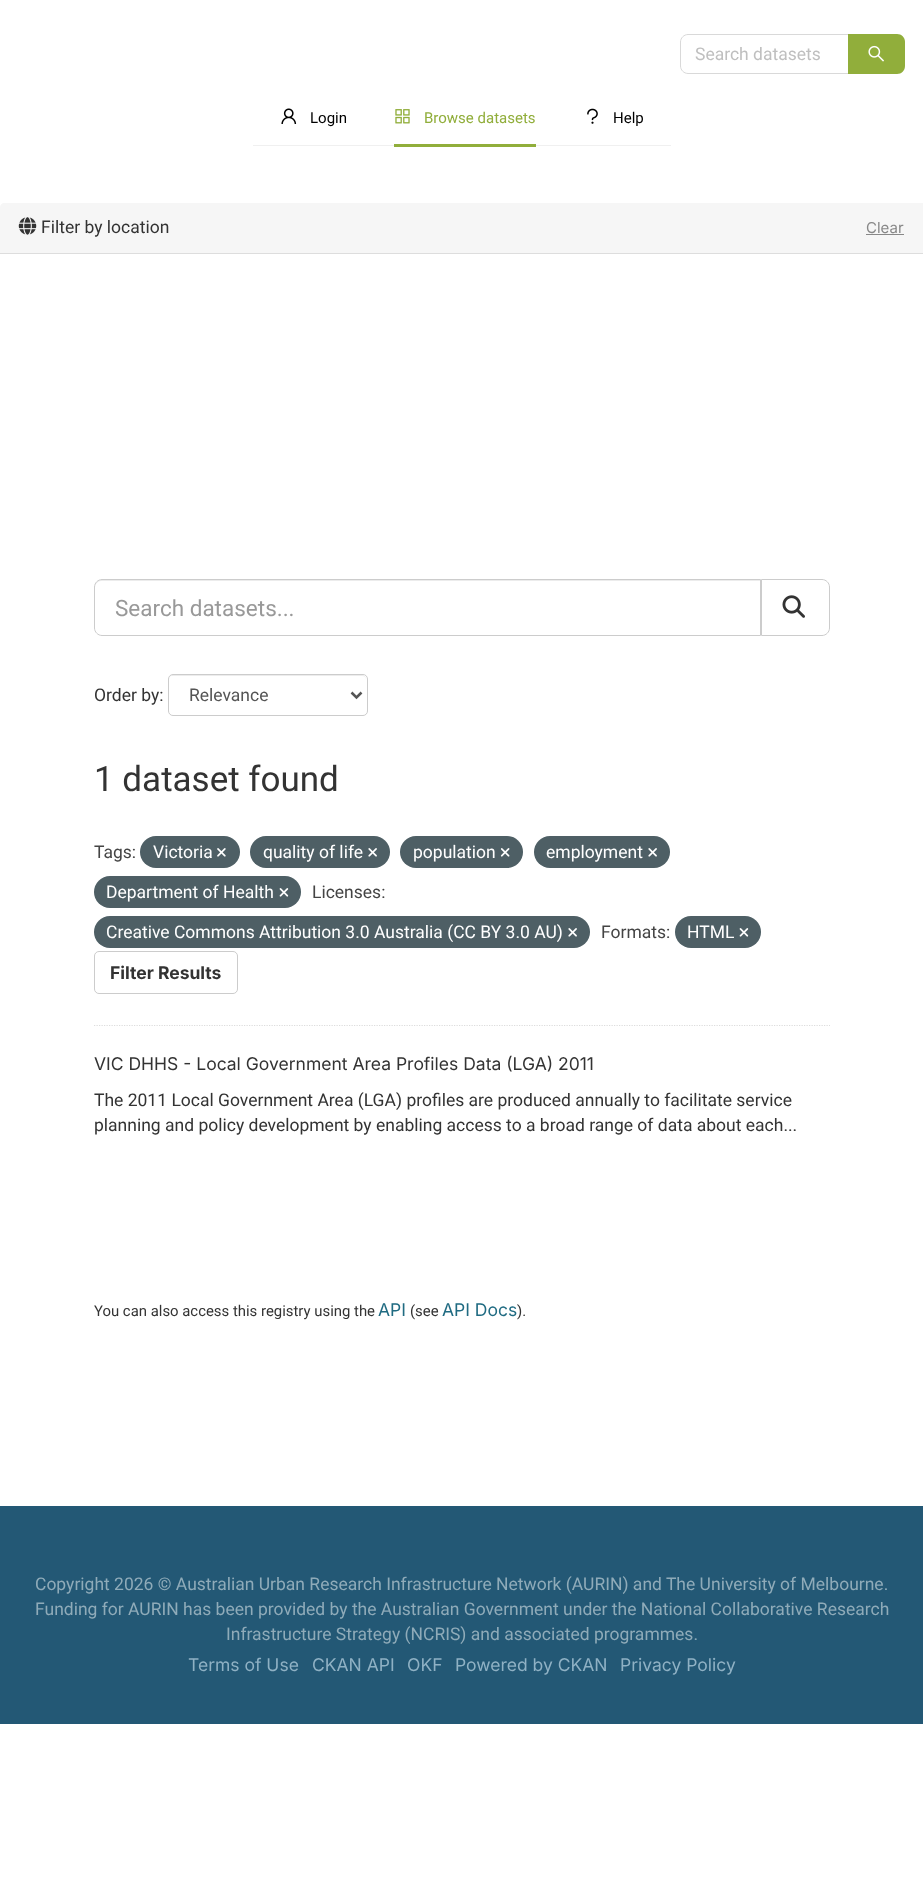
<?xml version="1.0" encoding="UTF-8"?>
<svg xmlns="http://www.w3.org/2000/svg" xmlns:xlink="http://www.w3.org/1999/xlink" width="923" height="1885">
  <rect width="100%" height="100%" fill="#ffffff" />
  <path d="M 688 34.5 h 160.5 v 39 h -160.5 c -4 0 -7.5 -3.5 -7.5 -7.5 v -24 c 0 -4 3.5 -7.5 7.5 -7.5 z" fill="none" stroke="#d9d9d9" />
  <path d="M 848 34 h 49 c 4.5 0 8 3.5 8 8 v 24 c 0 4.5 -3.5 8 -8 8 h -49 z" fill="#91ae3b" />
  <image x="868" y="45" width="16" height="17" xlink:href="image1.png" />
  <rect x="253" y="145" width="418" height="1" fill="#f0f0f0" />
  <image x="281" y="108" width="16" height="16" xlink:href="image2.png" />
  <image x="395" y="109" width="15" height="15" xlink:href="image3.png" />
  <rect x="394" y="144" width="142" height="3" fill="#91ae3b" />
  <image x="587" y="108" width="11" height="16" xlink:href="image4.png" />
  <path d="M 4 203 h 919 v 51 h -923 v -47 c 0 -2 2 -4 4 -4 z" fill="#f6f6f6" />
  <rect y="253" width="923" height="1" fill="#dddddd" />
  <image x="18" y="217" width="19" height="18" xlink:href="image5.png" />
  <rect x="866" y="234" width="38" height="1" fill="#888888" />
  <path d="M 94 1025.5 h 736" fill="none" stroke="#dddddd" stroke-width="1.2" stroke-dasharray="1.25 1.25" />
  <path d="M 101 581 h 659 v -1 h -659 c -5 0 -6 4 -6 8 c 0 -4 3 -7 6 -7 z" fill="#ececec" />
  <path d="M 102 579.5 h 658.5 v 56 h -658.5 c -4 0 -7.5 -3.5 -7.5 -7.5 v -41 c 0 -4 3.5 -7.5 7.5 -7.5 z" fill="none" stroke="#cccccc" />
  <path d="M 761.5 579.5 h 60.5 c 4 0 7.5 3.5 7.5 7.5 v 41 c 0 4 -3.5 7.5 -7.5 7.5 h -60.5 z" fill="none" stroke="#cccccc" />
  <image x="782" y="595" width="23" height="23" xlink:href="image6.png" />
  <path d="M 172 676 h 190 c 3 0 4 2 4 4 v -1 c 0 -2 -2 -4 -4 -4 h -189 c -2 0 -4 2 -4 4 v 1 c 0 -2 1 -4 3 -4 z" fill="#ececec" />
  <rect x="168.5" y="674.5" width="199" height="41" rx="4.5" fill="none" stroke="#cccccc" />
  <path d="M 351.5 692.5 l 5 5 l 5 -5" fill="none" stroke="#555555" stroke-width="2.5" />
  <rect x="140" y="836" width="100" height="32" rx="16" fill="#4e5f65" />
  <image x="217" y="848" width="9" height="9" xlink:href="image7.png" />
  <rect x="250" y="836" width="140" height="32" rx="16" fill="#4e5f65" />
  <image x="368" y="848" width="9" height="9" xlink:href="image8.png" />
  <rect x="400" y="836" width="123" height="32" rx="16" fill="#4e5f65" />
  <image x="500" y="848" width="10" height="9" xlink:href="image9.png" />
  <rect x="534" y="836" width="136" height="32" rx="16" fill="#4e5f65" />
  <image x="648" y="848" width="9" height="9" xlink:href="image8.png" />
  <rect x="94" y="876" width="207" height="32" rx="16" fill="#4e5f65" />
  <image x="279" y="888" width="10" height="9" xlink:href="image10.png" />
  <rect x="94" y="916" width="496" height="32" rx="16" fill="#4e5f65" />
  <image x="568" y="928" width="9" height="9" xlink:href="image8.png" />
  <rect x="675" y="916" width="86" height="32" rx="16" fill="#4e5f65" />
  <image x="739" y="928" width="10" height="9" xlink:href="image10.png" />
  <rect x="94.5" y="951.5" width="143" height="42" rx="4.5" fill="none" stroke="#cccccc" />
  <rect y="1506" width="923" height="218" fill="#235875" />
  <text x="695" y="60" style="font-family: Roboto; font-size: 17.5px; fill: #bfbfbf">Search datasets</text>
  <text x="310" y="123" style="font-family: Roboto; font-size: 15px; fill: #000000">Login</text>
  <text x="424" y="123" style="font-family: Roboto; font-size: 15px; fill: #91ae3b">Browse datasets</text>
  <text x="613" y="123" style="font-family: Roboto; font-size: 15px; fill: #000000">Help</text>
  <text x="41" y="233" style="font-family: Roboto; font-size: 17.5px; fill: #333333">Filter by location</text>
  <text x="866" y="233" style="font-family: Inter; font-size: 15px; fill: #888888">Clear</text>
  <text x="115" y="616" style="font-family: Roboto; font-size: 22.5px; fill: #999999">Search datasets...</text>
  <text x="94" y="701" style="font-family: Roboto; font-size: 17.5px; fill: #333333">Order by:</text>
  <text x="189" y="701" style="font-family: Roboto; font-size: 17.5px; fill: #555555">Relevance</text>
  <text x="94" y="791" style="font-family: Roboto; font-size: 35px; fill: #333333">1 dataset found</text>
  <text x="94" y="858" style="font-family: Roboto; font-size: 17.5px; fill: #444444">Tags:</text>
  <text x="153" y="858" style="font-family: Roboto; font-size: 17.5px; fill: #ffffff">Victoria</text>
  <text x="263" y="858" style="font-family: Roboto; font-size: 17.5px; fill: #ffffff">quality of life</text>
  <text x="413" y="858" style="font-family: Roboto; font-size: 17.5px; fill: #ffffff">population</text>
  <text x="546" y="858" style="font-family: Roboto; font-size: 17.5px; fill: #ffffff">employment</text>
  <text x="106" y="898" style="font-family: Roboto; font-size: 17.5px; fill: #ffffff">Department of Health</text>
  <text x="312" y="898" style="font-family: Roboto; font-size: 17.5px; fill: #444444">Licenses:</text>
  <text x="106" y="938" style="font-family: Roboto; font-size: 17.5px; fill: #ffffff">Creative Commons Attribution 3.0 Australia (CC BY 3.0 AU)</text>
  <text x="601" y="938" style="font-family: Roboto; font-size: 17.5px; fill: #444444">Formats:</text>
  <text x="687" y="938" style="font-family: Roboto; font-size: 17.5px; fill: #ffffff">HTML</text>
  <text x="110" y="979" style="font-family: Inter; font-size: 17.5px; font-weight: bold; fill: #333333">Filter Results</text>
  <text x="94" y="1070" style="font-family: Inter; font-size: 17.5px; fill: #333333">VIC DHHS - Local Government Area Profiles Data (LGA) 2011</text>
  <text x="94" y="1106" style="font-family: Roboto; font-size: 17.5px; fill: #333333">The 2011 Local Government Area (LGA) profiles are produced annually to facilitate service</text>
  <text x="94" y="1131" style="font-family: Roboto; font-size: 17.5px; fill: #333333">planning and policy development by enabling access to a broad range of data about each...</text>
  <text x="94" y="1316" style="font-family: Roboto; font-size: 14.9px; fill: #333333">You can also access this registry using the</text>
  <text x="378" y="1316" style="font-family: Inter; font-size: 17.5px; fill: #206b82">API</text>
  <text x="410" y="1316" style="font-family: Roboto; font-size: 14.9px; fill: #333333">(see</text>
  <text x="442" y="1316" style="font-family: Inter; font-size: 17.5px; fill: #206b82">API Docs</text>
  <text x="517" y="1316" style="font-family: Roboto; font-size: 14.9px; fill: #333333">).</text>
  <text x="35" y="1590" style="font-family: Roboto; font-size: 17.5px; fill: #8fabb9">Copyright 2026 © Australian Urban Research Infrastructure Network (AURIN) and The University of Melbourne.</text>
  <text x="35" y="1615" style="font-family: Roboto; font-size: 17.5px; fill: #8fabb9">Funding for AURIN has been provided by the Australian Government under the National Collaborative Research</text>
  <text x="226" y="1640" style="font-family: Roboto; font-size: 17.5px; fill: #8fabb9">Infrastructure Strategy (NCRIS) and associated programmes.</text>
  <text x="188" y="1671" style="font-family: Inter; font-size: 17.5px; fill: #8fb1c4">Terms of Use</text>
  <text x="312" y="1671" style="font-family: Inter; font-size: 17.5px; fill: #8fb1c4">CKAN API</text>
  <text x="407" y="1671" style="font-family: Inter; font-size: 17.5px; fill: #8fb1c4">OKF</text>
  <text x="455" y="1671" style="font-family: Inter; font-size: 17.5px; fill: #8fb1c4">Powered by CKAN</text>
  <text x="620" y="1671" style="font-family: Inter; font-size: 17.5px; fill: #8fb1c4">Privacy Policy</text>
</svg>
